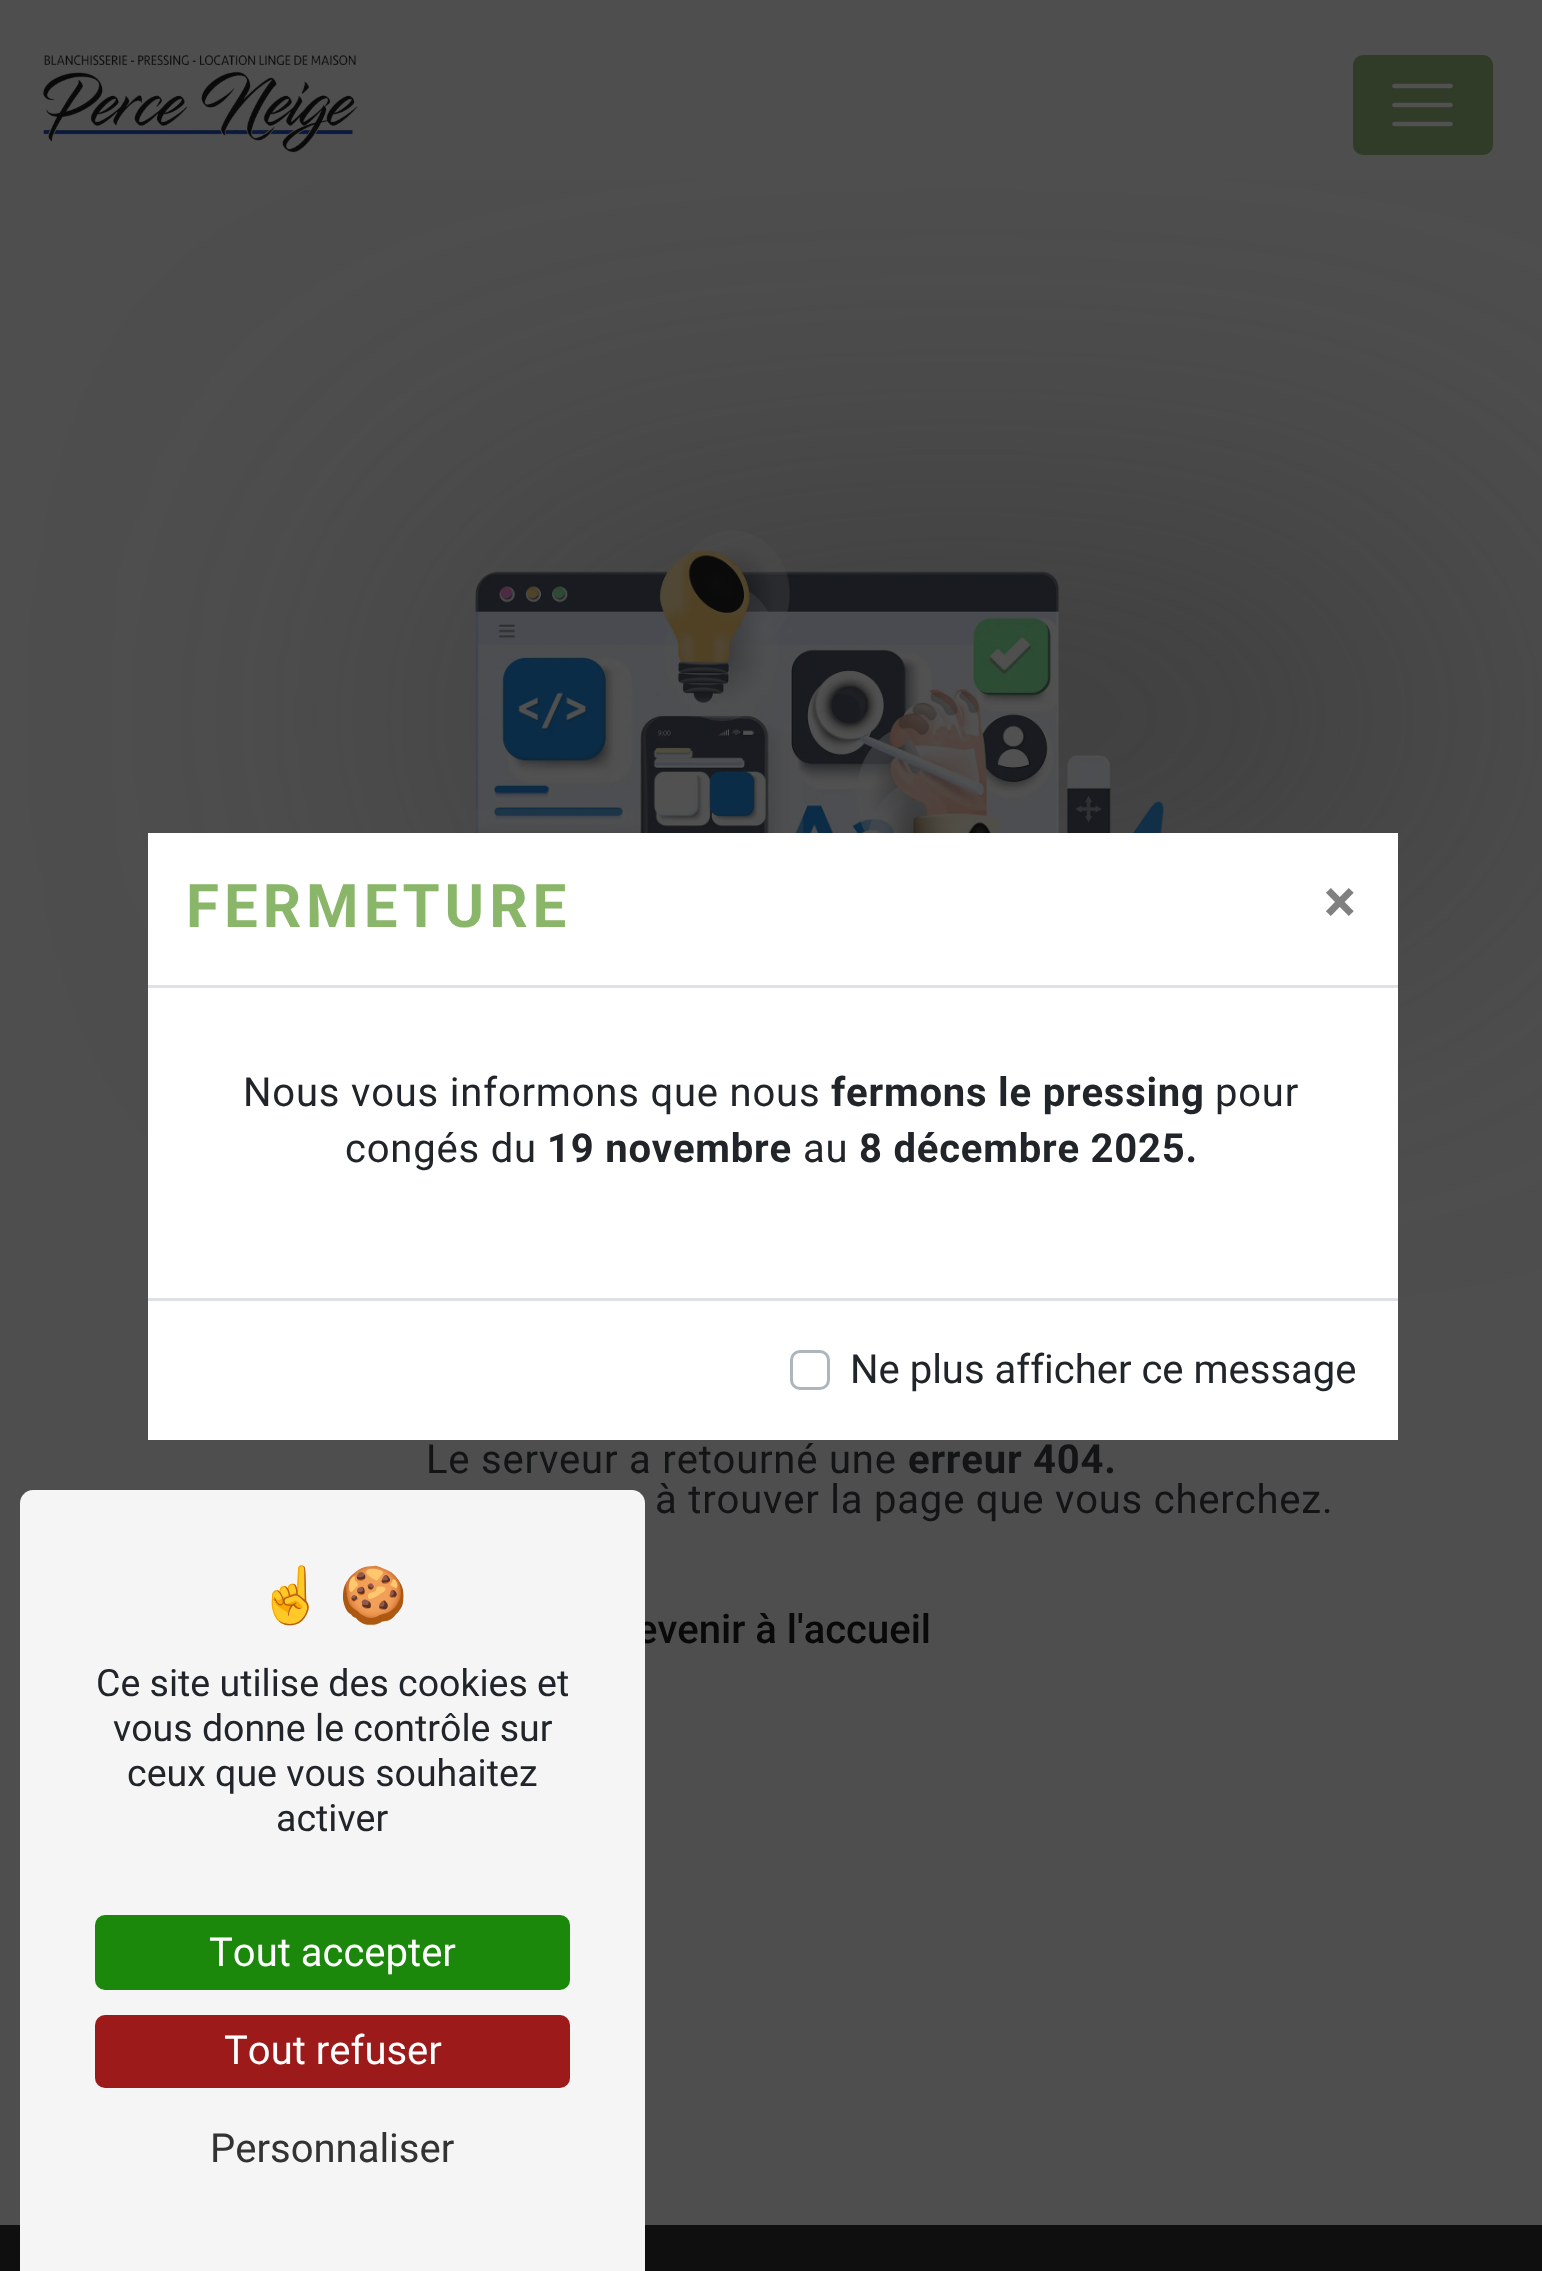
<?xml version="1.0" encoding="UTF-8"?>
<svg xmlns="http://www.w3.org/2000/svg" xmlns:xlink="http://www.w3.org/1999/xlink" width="1542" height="2271">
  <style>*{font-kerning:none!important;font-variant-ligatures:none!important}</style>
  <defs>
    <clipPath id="clip1"><rect x="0" y="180" width="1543" height="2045" /></clipPath>
  </defs>
  <rect width="100%" height="100%" fill="#4e4e4e" />
  <g clip-path="url(#clip1)">
    <rect x="463" y="590" width="1000" height="250" rx="125" fill="#333333" filter="blur(200px)" />
  </g>
  <image x="43" y="54" width="315" height="99" xlink:href="image1.png" />
  <rect x="1353" y="55" width="140" height="100" rx="10" fill="#303c27" />
  <path d="M 1394.5 86 h 56 m -56 19 h 56 m -56 19 h 56" fill="none" stroke="#515151" stroke-width="4.7" stroke-linecap="round" />
  <rect x="148" y="833" width="1250" height="607" fill="#ffffff" />
  <rect x="148" y="985" width="1250" height="3" fill="#dee2e6" />
  <rect x="148" y="1298" width="1250" height="3" fill="#dee2e6" />
  <rect x="791.5" y="1351.5" width="37" height="37" rx="8.5" fill="none" stroke="#adb5bd" stroke-width="3" />
  <image x="475" y="530" width="689" height="303" xlink:href="image2.png" />
  <rect y="2225" width="1542" height="46" fill="#0f0f0f" />
  <text x="186" y="927" style="font-family: Roboto; font-size: 60px; font-weight: bold; letter-spacing: 5px; fill: #8ab669">FERMETURE</text>
  <text x="1324" y="922" style="font-family: Roboto; font-size: 60px; font-weight: bold; fill: #808080">×</text>
  <text x="243" y="1106" style="font-family: Roboto; font-size: 40px; letter-spacing: 0.8px; fill: #212529">Nous vous informons que nous</text>
  <text x="831" y="1106" style="font-family: Roboto; font-size: 40px; font-weight: bold; letter-spacing: 0.8px; fill: #212529">fermons le pressing</text>
  <text x="1215" y="1106" style="font-family: Roboto; font-size: 40px; letter-spacing: 0.8px; fill: #212529">pour</text>
  <text x="345" y="1162" style="font-family: Roboto; font-size: 40px; letter-spacing: 0.8px; fill: #212529">congés du</text>
  <text x="547" y="1162" style="font-family: Roboto; font-size: 40px; font-weight: bold; letter-spacing: 0.8px; fill: #212529">19 novembre</text>
  <text x="803" y="1162" style="font-family: Roboto; font-size: 40px; letter-spacing: 0.8px; fill: #212529">au</text>
  <text x="859" y="1162" style="font-family: Roboto; font-size: 40px; font-weight: bold; letter-spacing: 0.8px; fill: #212529">8 décembre 2025.</text>
  <text x="850" y="1383" style="font-family: Roboto; font-size: 40px; fill: #212529">Ne plus afficher ce message</text>
  <text x="426" y="1473" style="font-family: Roboto; font-size: 40px; letter-spacing: 0.8px; fill: #131415">Le serveur a retourné une</text>
  <text x="908" y="1473" style="font-family: Roboto; font-size: 40px; font-weight: bold; letter-spacing: 0.8px; fill: #131415">erreur 404.</text>
  <text x="655" y="1513" style="font-family: Roboto; font-size: 40px; letter-spacing: 0.8px; fill: #131415">à trouver la page que vous cherchez.</text>
  <text x="636" y="1643" style="font-family: Roboto; font-size: 40px; font-weight: 500; fill: #090909">evenir à l'accueil</text>
  <path d="M 33 1490 h 599 c 7 0 13 6 13 13 v 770 h -625 v -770 c 0 -7 6 -13 13 -13 z" fill="#f5f5f5" />
  <text x="257" y="1614" style="font-family: Noto Color Emoji; font-size: 55px; fill: #212529">☝</text>
  <text x="339" y="1614" style="font-family: Noto Color Emoji; font-size: 55px; fill: #212529">🍪</text>
  <text x="96" y="1696" style="font-family: Roboto; font-size: 37.5px; fill: #212529">Ce site utilise des cookies et</text>
  <text x="113" y="1741" style="font-family: Roboto; font-size: 37.5px; fill: #212529">vous donne le contrôle sur</text>
  <text x="127" y="1786" style="font-family: Roboto; font-size: 37.5px; fill: #212529">ceux que vous souhaitez</text>
  <text x="276" y="1831" style="font-family: Roboto; font-size: 37.5px; fill: #212529">activer</text>
  <rect x="95" y="1915" width="475" height="75" rx="10" fill="#1b870b" />
  <text x="209" y="1966" style="font-family: Roboto; font-size: 40px; fill: #ffffff">Tout accepter</text>
  <rect x="95" y="2015" width="475" height="73" rx="10" fill="#9c1a1a" />
  <text x="224" y="2064" style="font-family: Roboto; font-size: 40px; fill: #ffffff">Tout refuser</text>
  <text x="210" y="2162" style="font-family: Roboto; font-size: 40px; fill: #333333">Personnaliser</text>
</svg>
